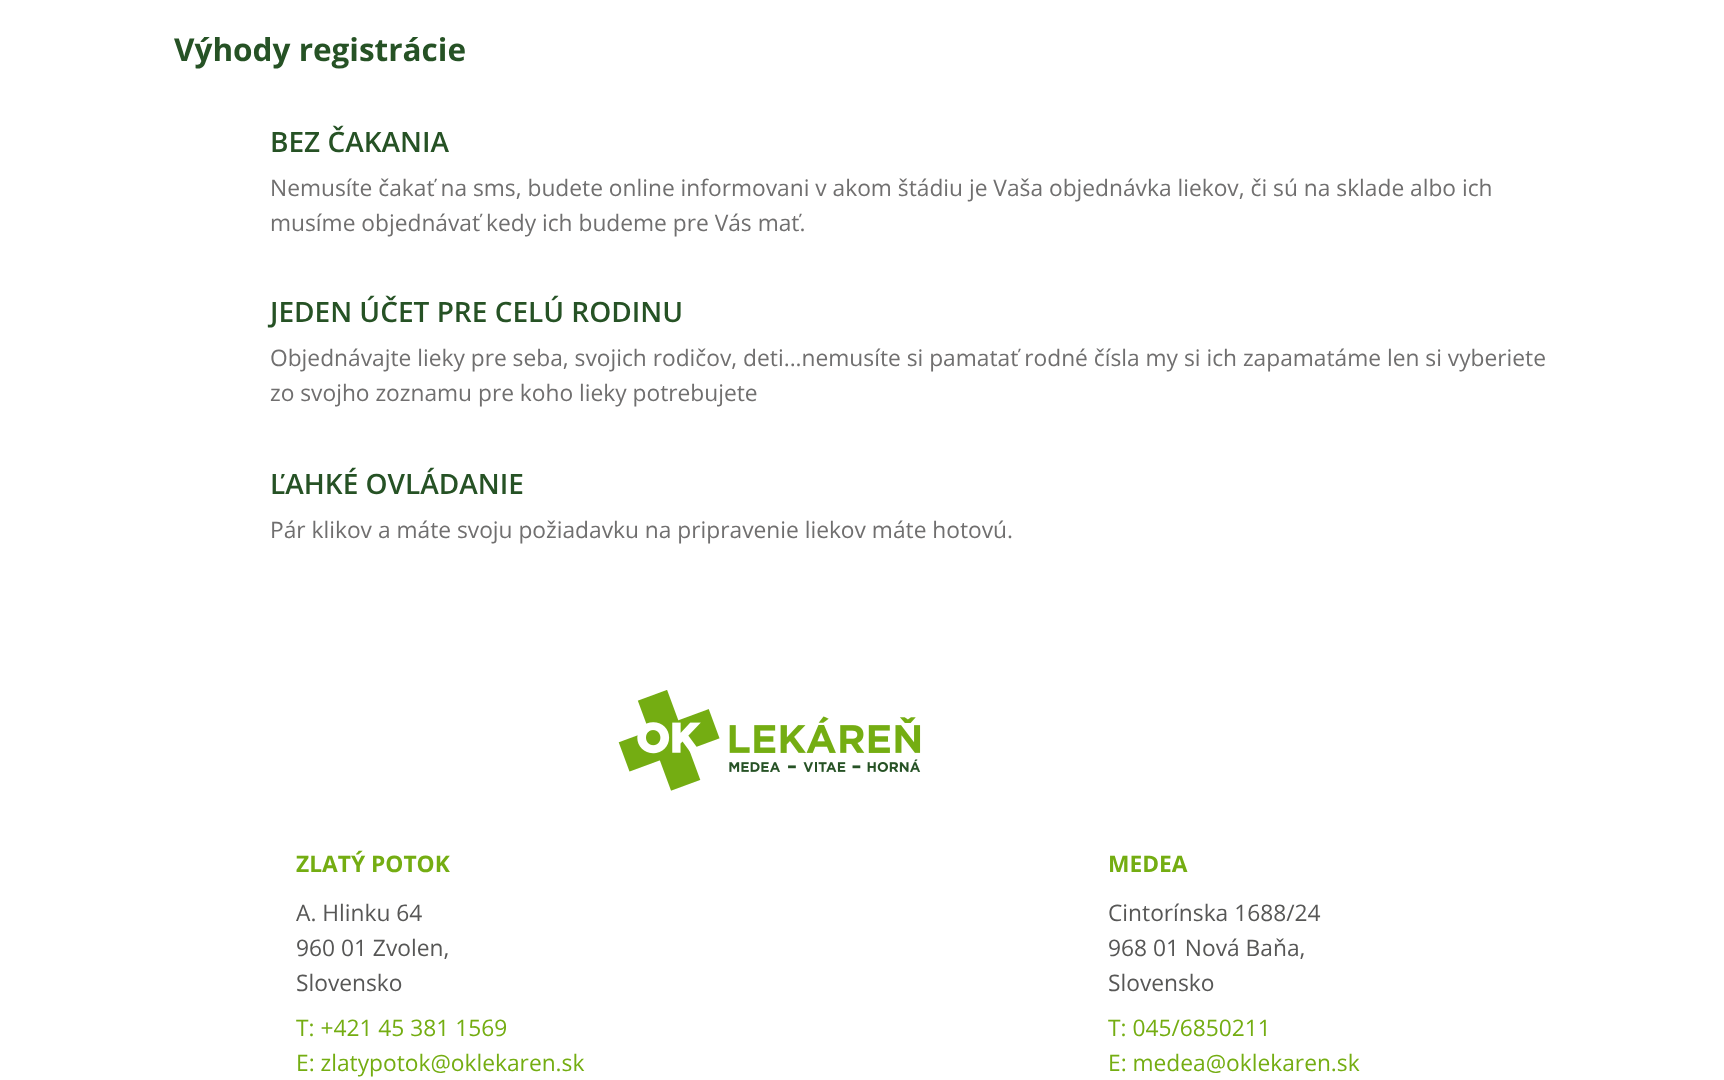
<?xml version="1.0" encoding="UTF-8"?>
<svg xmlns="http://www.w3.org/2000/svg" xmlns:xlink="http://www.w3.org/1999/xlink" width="1724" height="1080">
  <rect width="100%" height="100%" fill="#ffffff" />
  <image x="618" y="690" width="303" height="101" xlink:href="image1.png" />
  <text x="174" y="61" style="font-family: Open Sans; font-size: 31.5px; font-weight: bold; fill: #265225">Výhody registrácie</text>
  <text x="270" y="152" style="font-family: Open Sans; font-size: 28px; font-weight: 600; fill: #265225">BEZ ČAKANIA</text>
  <text x="270" y="196" style="font-family: Open Sans; font-size: 22.75px; fill: #706f6f">Nemusíte čakať na sms, budete online informovani v akom štádiu je Vaša objednávka liekov, či sú na sklade albo ich</text>
  <text x="270" y="231" style="font-family: Open Sans; font-size: 22.75px; fill: #706f6f">musíme objednávať kedy ich budeme pre Vás mať.</text>
  <text x="270" y="322" style="font-family: Open Sans; font-size: 28px; font-weight: 600; fill: #265225">JEDEN ÚČET PRE CELÚ RODINU</text>
  <text x="270" y="366" style="font-family: Open Sans; font-size: 22.75px; fill: #706f6f">Objednávajte lieky pre seba, svojich rodičov, deti...nemusíte si pamatať rodné čísla my si ich zapamatáme len si vyberiete</text>
  <text x="270" y="401" style="font-family: Open Sans; font-size: 22.75px; fill: #706f6f">zo svojho zoznamu pre koho lieky potrebujete</text>
  <text x="270" y="494" style="font-family: Open Sans; font-size: 28px; font-weight: 600; fill: #265225">ĽAHKÉ OVLÁDANIE</text>
  <text x="270" y="538" style="font-family: Open Sans; font-size: 22.75px; fill: #706f6f">Pár klikov a máte svoju požiadavku na pripravenie liekov máte hotovú.</text>
  <text x="296" y="872" style="font-family: Open Sans; font-size: 22.75px; font-weight: bold; fill: #74ad12">ZLATÝ POTOK</text>
  <text x="296" y="921" style="font-family: Open Sans; font-size: 22.75px; fill: #575756">A. Hlinku 64</text>
  <text x="296" y="956" style="font-family: Open Sans; font-size: 22.75px; fill: #575756">960 01 Zvolen,</text>
  <text x="296" y="991" style="font-family: Open Sans; font-size: 22.75px; fill: #575756">Slovensko</text>
  <text x="296" y="1036" style="font-family: Open Sans; font-size: 22.75px; fill: #74ad12">T: +421 45 381 1569</text>
  <text x="296" y="1071" style="font-family: Open Sans; font-size: 22.75px; fill: #74ad12">E: zlatypotok@oklekaren.sk</text>
  <text x="1108" y="872" style="font-family: Open Sans; font-size: 22.75px; font-weight: bold; fill: #74ad12">MEDEA</text>
  <text x="1108" y="921" style="font-family: Open Sans; font-size: 22.75px; fill: #575756">Cintorínska 1688/24</text>
  <text x="1108" y="956" style="font-family: Open Sans; font-size: 22.75px; fill: #575756">968 01 Nová Baňa,</text>
  <text x="1108" y="991" style="font-family: Open Sans; font-size: 22.75px; fill: #575756">Slovensko</text>
  <text x="1108" y="1036" style="font-family: Open Sans; font-size: 22.75px; fill: #74ad12">T: 045/6850211</text>
  <text x="1108" y="1071" style="font-family: Open Sans; font-size: 22.75px; fill: #74ad12">E: medea@oklekaren.sk</text>
</svg>
